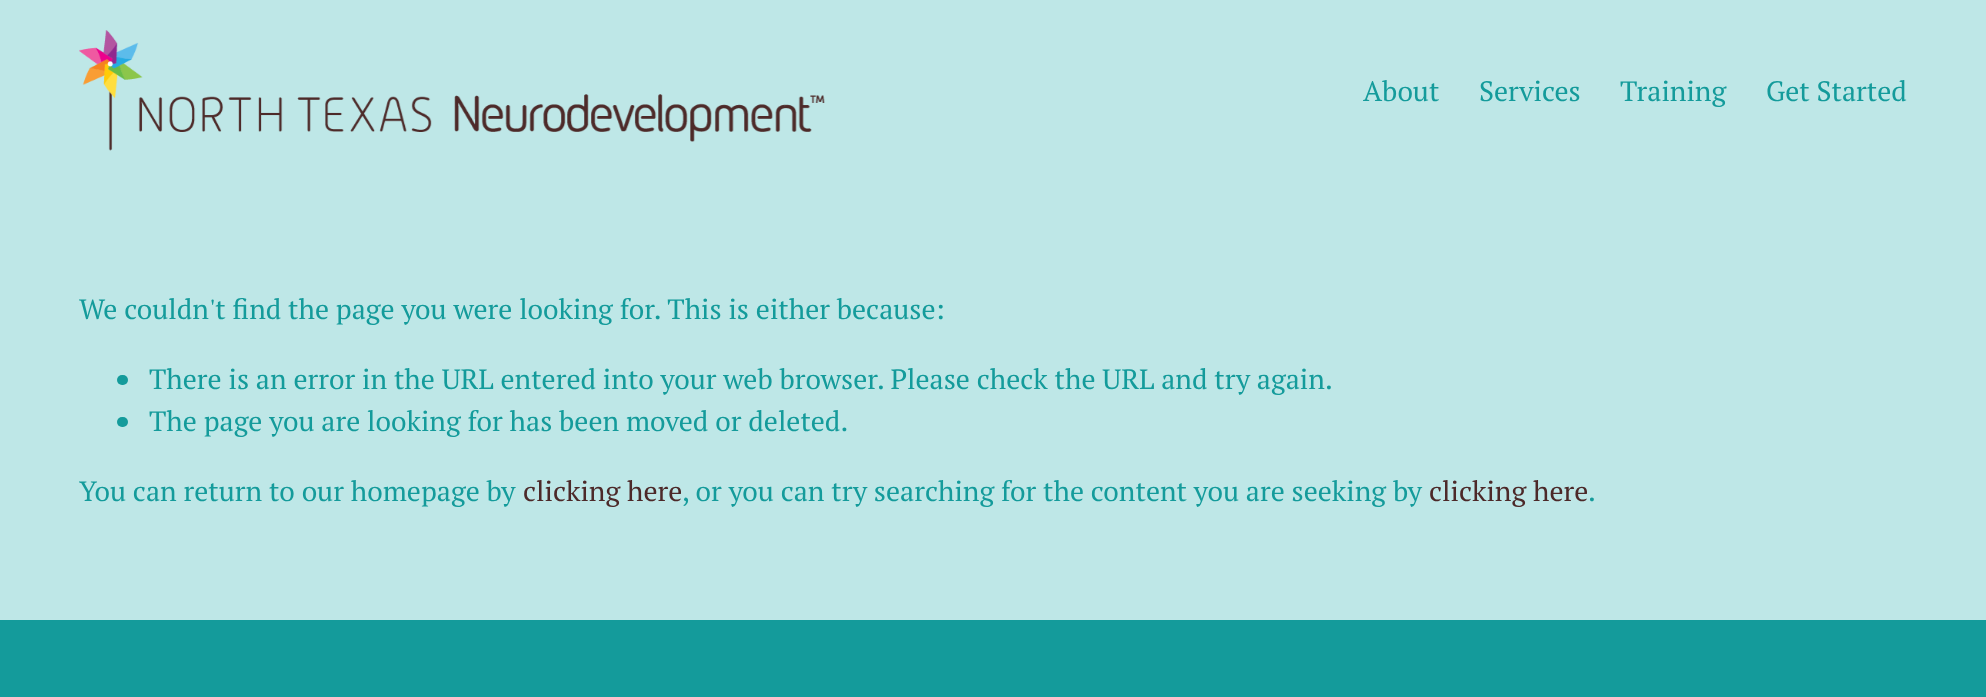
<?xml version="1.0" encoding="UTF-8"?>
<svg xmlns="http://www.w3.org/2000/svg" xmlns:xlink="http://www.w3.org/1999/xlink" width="1986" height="697">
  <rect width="100%" height="100%" fill="#bee7e7" />
  <image x="79" y="30" width="746" height="121" xlink:href="image1.png" />
  <rect x="117" y="375" width="11" height="10" rx="5" fill="#149b9b" />
  <rect x="117" y="417" width="11" height="10" rx="5" fill="#149b9b" />
  <rect y="620" width="1986" height="77" fill="#149b9b" />
  <text x="1363" y="101" style="font-family: PT Serif; font-size: 28px; fill: #149b9b">About</text>
  <text x="1479" y="101" style="font-family: PT Serif; font-size: 28px; fill: #149b9b">Services</text>
  <text x="1620" y="101" style="font-family: PT Serif; font-size: 28px; fill: #149b9b">Training</text>
  <text x="1766" y="101" style="font-family: PT Serif; font-size: 28px; fill: #149b9b">Get Started</text>
  <text x="79" y="319" style="font-family: PT Serif; font-size: 28px; fill: #149b9b">We couldn't find the page you were looking for. This is either because:</text>
  <text x="149" y="389" style="font-family: PT Serif; font-size: 28px; fill: #149b9b">There is an error in the URL entered into your web browser. Please check the URL and try again.</text>
  <text x="149" y="431" style="font-family: PT Serif; font-size: 28px; fill: #149b9b">The page you are looking for has been moved or deleted.</text>
  <text x="79" y="501" style="font-family: PT Serif; font-size: 28px; fill: #149b9b">You can return to our homepage by</text>
  <text x="523" y="501" style="font-family: PT Serif; font-size: 28px; fill: #4c2929">clicking here</text>
  <text x="682" y="501" style="font-family: PT Serif; font-size: 28px; fill: #149b9b">, or you can try searching for the content you are seeking by</text>
  <text x="1429" y="501" style="font-family: PT Serif; font-size: 28px; fill: #4c2929">clicking here</text>
  <text x="1588" y="501" style="font-family: PT Serif; font-size: 28px; fill: #149b9b">.</text>
</svg>
